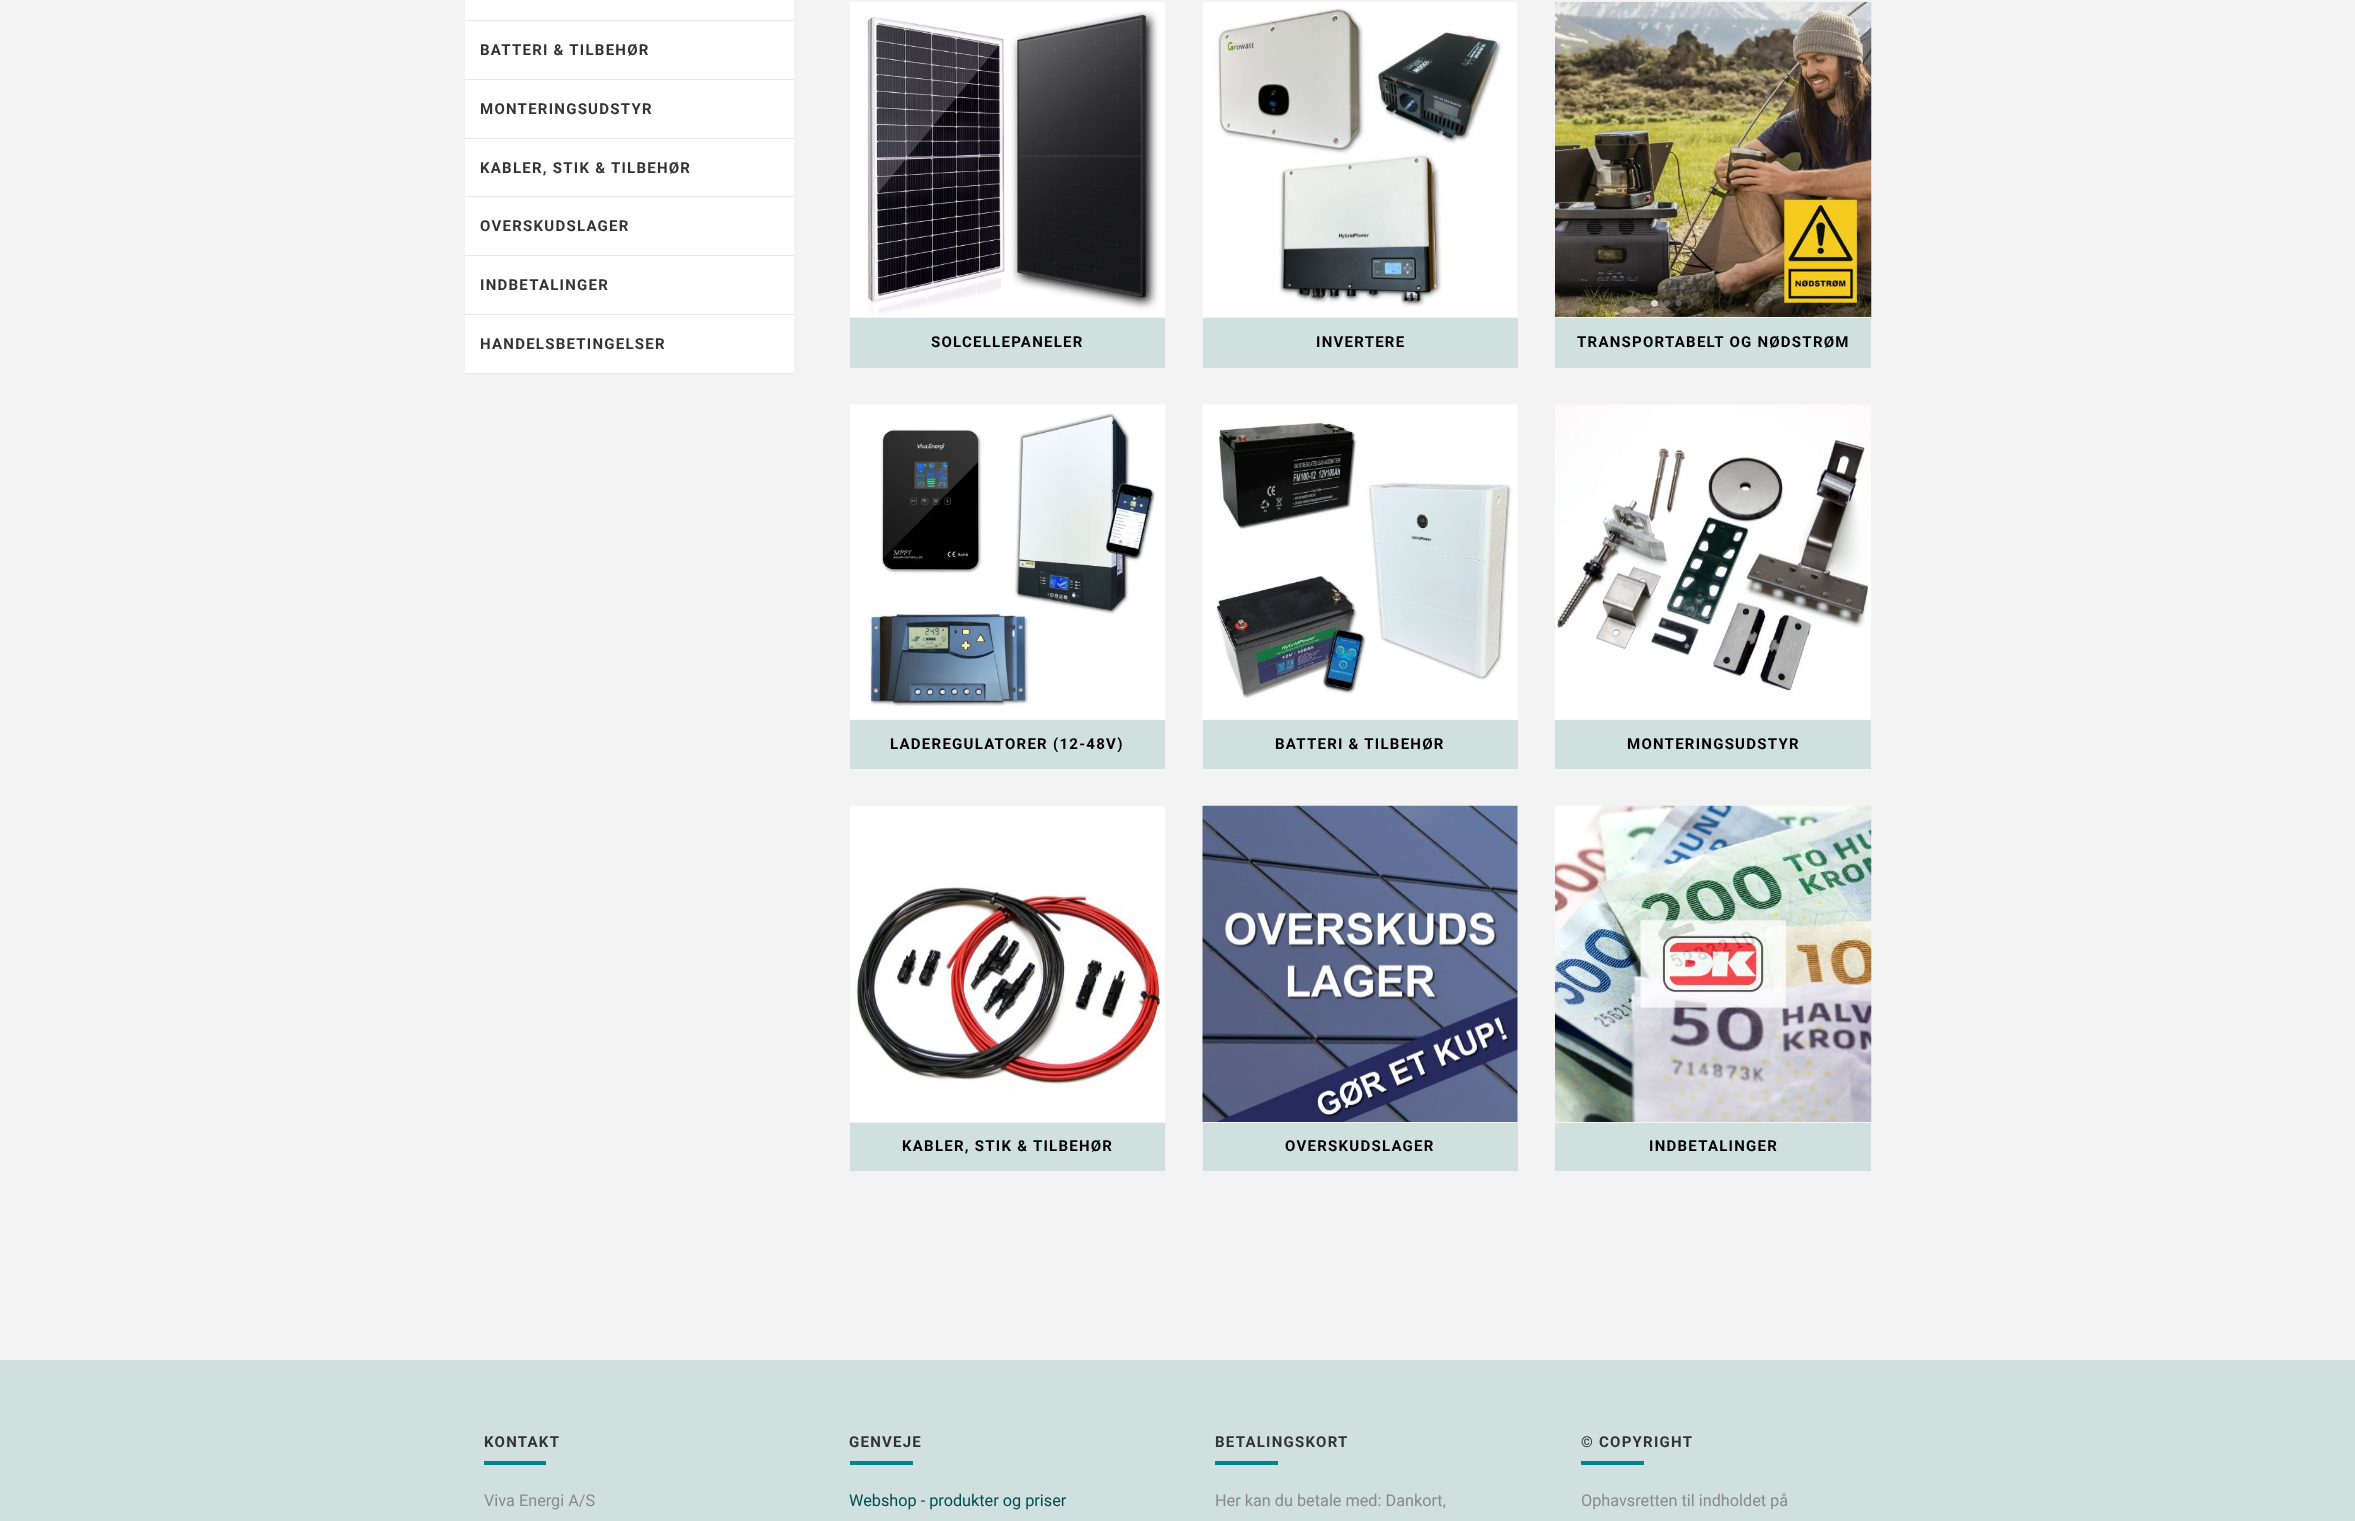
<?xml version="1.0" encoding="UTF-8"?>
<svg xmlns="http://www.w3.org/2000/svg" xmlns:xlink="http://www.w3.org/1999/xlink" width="2355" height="1521">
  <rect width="100%" height="100%" fill="#f3f3f3" />
  <rect x="465" width="329" height="20" fill="#ffffff" />
  <rect x="465" y="20" width="329" height="1" fill="#e7e7e7" />
  <rect x="465" y="21" width="329" height="58" fill="#ffffff" />
  <rect x="465" y="79" width="329" height="1" fill="#e7e7e7" />
  <rect x="465" y="80" width="329" height="58" fill="#ffffff" />
  <rect x="465" y="138" width="329" height="1" fill="#e7e7e7" />
  <rect x="465" y="139" width="329" height="116" fill="#ffffff" />
  <rect x="465" y="196" width="329" height="1" fill="#e7e7e7" />
  <rect x="465" y="255" width="329" height="1" fill="#e7e7e7" />
  <rect x="465" y="256" width="329" height="58" fill="#ffffff" />
  <rect x="465" y="314" width="329" height="1" fill="#e7e7e7" />
  <rect x="465" y="315" width="329" height="58" fill="#ffffff" />
  <rect x="465" y="373" width="329" height="1" fill="#e7e7e7" />
  <image x="850" y="2" width="315" height="315" xlink:href="image1.png" />
  <rect x="850" y="318" width="315" height="50" fill="#d0e0df" />
  <image x="1202" y="2" width="316" height="315" xlink:href="image2.png" />
  <rect x="1203" y="318" width="315" height="50" fill="#d0e0df" />
  <image x="1555" y="2" width="317" height="315" xlink:href="image3.png" />
  <rect x="1555" y="318" width="316" height="50" fill="#d0e0df" />
  <image x="850" y="404" width="315" height="316" xlink:href="image4.png" />
  <rect x="850" y="720" width="315" height="49" fill="#d0e0df" />
  <image x="1202" y="404" width="316" height="316" xlink:href="image5.png" />
  <rect x="1203" y="720" width="315" height="49" fill="#d0e0df" />
  <image x="1555" y="404" width="316" height="316" xlink:href="image6.png" />
  <rect x="1555" y="720" width="316" height="49" fill="#d0e0df" />
  <image x="850" y="806" width="315" height="316" xlink:href="image7.png" />
  <rect x="850" y="1123" width="315" height="48" fill="#d0e0df" />
  <image x="1202" y="805" width="316" height="317" xlink:href="image8.png" />
  <rect x="1203" y="1123" width="315" height="48" fill="#d0e0df" />
  <image x="1555" y="805" width="317" height="317" xlink:href="image9.png" />
  <rect x="1555" y="1123" width="316" height="48" fill="#d0e0df" />
  <rect y="1360" width="2355" height="161" fill="#d0e0df" />
  <rect x="484" y="1461" width="62" height="4" fill="#00838f" />
  <rect x="850" y="1461" width="63" height="4" fill="#00838f" />
  <rect x="1215" y="1461" width="63" height="4" fill="#00838f" />
  <rect x="1581" y="1461" width="63" height="4" fill="#00838f" />
  <text x="480" y="55" style="font-family: Roboto; font-size: 15px; font-weight: bold; letter-spacing: 1.25px; fill: #333333">BATTERI &amp; TILBEHØR</text>
  <text x="480" y="114" style="font-family: Roboto; font-size: 15px; font-weight: bold; letter-spacing: 1.25px; fill: #333333">MONTERINGSUDSTYR</text>
  <text x="480" y="173" style="font-family: Roboto; font-size: 15px; font-weight: bold; letter-spacing: 1.25px; fill: #333333">KABLER, STIK &amp; TILBEHØR</text>
  <text x="480" y="231" style="font-family: Roboto; font-size: 15px; font-weight: bold; letter-spacing: 1.25px; fill: #333333">OVERSKUDSLAGER</text>
  <text x="480" y="290" style="font-family: Roboto; font-size: 15px; font-weight: bold; letter-spacing: 1.25px; fill: #333333">INDBETALINGER</text>
  <text x="480" y="349" style="font-family: Roboto; font-size: 15px; font-weight: bold; letter-spacing: 1.25px; fill: #333333">HANDELSBETINGELSER</text>
  <text x="931" y="347" style="font-family: Roboto; font-size: 15px; font-weight: bold; letter-spacing: 1.25px; fill: #000000">SOLCELLEPANELER</text>
  <text x="1316" y="347" style="font-family: Roboto; font-size: 15px; font-weight: bold; letter-spacing: 1.25px; fill: #000000">INVERTERE</text>
  <text x="1577" y="347" style="font-family: Roboto; font-size: 15px; font-weight: bold; letter-spacing: 1.25px; fill: #000000">TRANSPORTABELT OG NØDSTRØM</text>
  <text x="890" y="749" style="font-family: Roboto; font-size: 15px; font-weight: bold; letter-spacing: 1.25px; fill: #000000">LADEREGULATORER (12-48V)</text>
  <text x="1275" y="749" style="font-family: Roboto; font-size: 15px; font-weight: bold; letter-spacing: 1.25px; fill: #000000">BATTERI &amp; TILBEHØR</text>
  <text x="1627" y="749" style="font-family: Roboto; font-size: 15px; font-weight: bold; letter-spacing: 1.25px; fill: #000000">MONTERINGSUDSTYR</text>
  <text x="902" y="1151" style="font-family: Roboto; font-size: 15px; font-weight: bold; letter-spacing: 1.25px; fill: #000000">KABLER, STIK &amp; TILBEHØR</text>
  <text x="1285" y="1151" style="font-family: Roboto; font-size: 15px; font-weight: bold; letter-spacing: 1.25px; fill: #000000">OVERSKUDSLAGER</text>
  <text x="1649" y="1151" style="font-family: Roboto; font-size: 15px; font-weight: bold; letter-spacing: 1.25px; fill: #000000">INDBETALINGER</text>
  <text x="484" y="1447" style="font-family: Roboto; font-size: 15px; font-weight: bold; letter-spacing: 1.25px; fill: #333333">KONTAKT</text>
  <text x="484" y="1506" style="font-family: Roboto; font-size: 16.25px; fill: #8a8a8a">Viva Energi A/S</text>
  <text x="849" y="1447" style="font-family: Roboto; font-size: 15px; font-weight: bold; letter-spacing: 1.25px; fill: #333333">GENVEJE</text>
  <text x="849" y="1506" style="font-family: Roboto; font-size: 16.25px; fill: #004e51">Webshop - produkter og priser</text>
  <text x="1215" y="1447" style="font-family: Roboto; font-size: 15px; font-weight: bold; letter-spacing: 1.25px; fill: #333333">BETALINGSKORT</text>
  <text x="1215" y="1506" style="font-family: Roboto; font-size: 16.25px; fill: #8a8a8a">Her kan du betale med: Dankort,</text>
  <text x="1581" y="1447" style="font-family: Roboto; font-size: 15px; font-weight: bold; letter-spacing: 1.25px; fill: #333333">© COPYRIGHT</text>
  <text x="1581" y="1506" style="font-family: Roboto; font-size: 16.25px; fill: #8a8a8a">Ophavsretten til indholdet på</text>
</svg>
